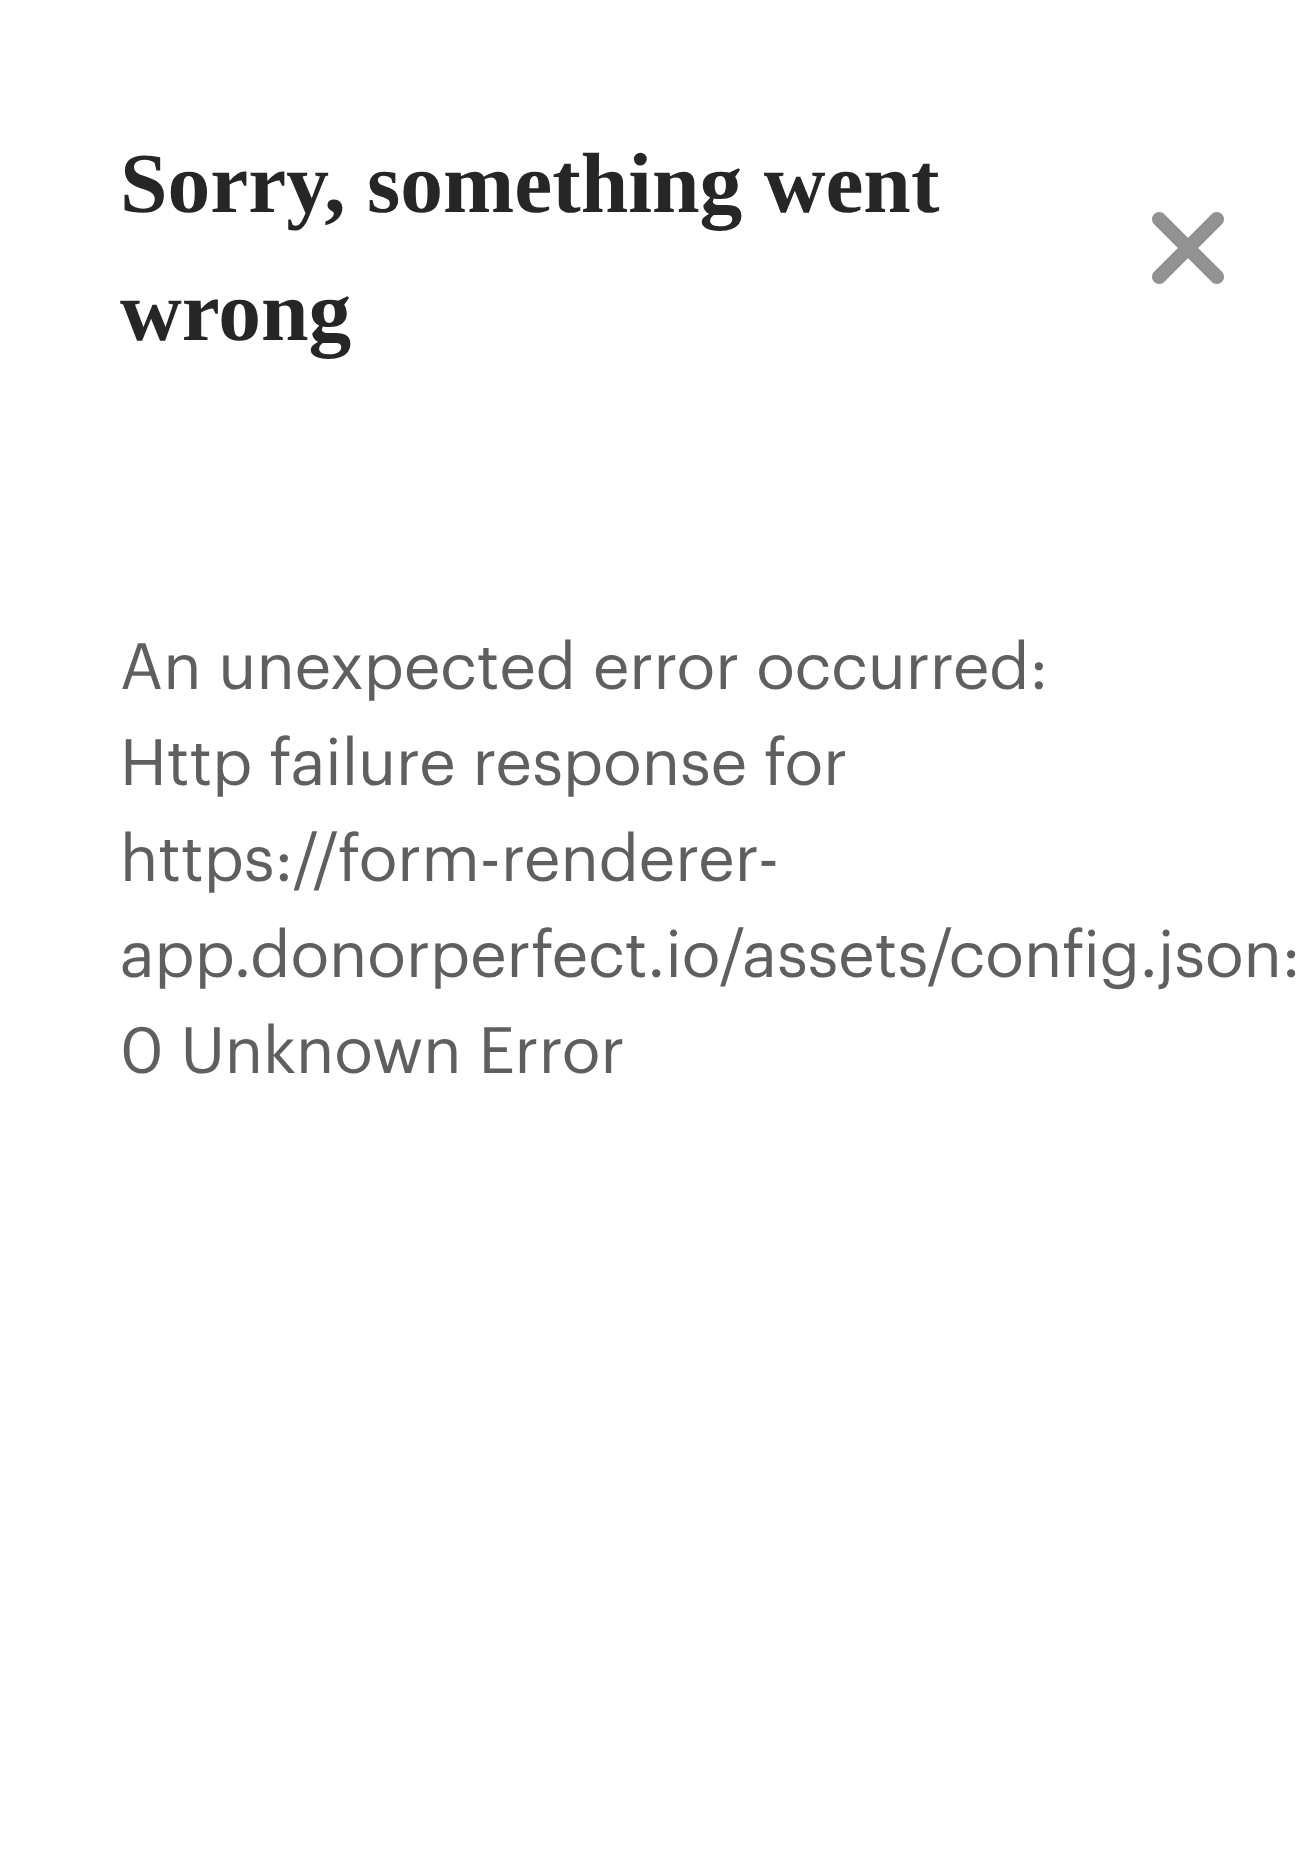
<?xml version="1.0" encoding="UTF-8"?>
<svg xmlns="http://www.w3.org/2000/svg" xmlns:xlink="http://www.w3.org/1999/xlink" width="1316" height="1854">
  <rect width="100%" height="100%" fill="#ffffff" />
  <image x="1152" y="212" width="72" height="72" xlink:href="image1.png" />
  <text x="120" y="212" style="font-family: Liberation Serif; font-size: 85.5px; font-weight: bold; fill: #262626">Sorry, something went</text>
  <text x="120" y="340" style="font-family: Liberation Serif; font-size: 85.5px; font-weight: bold; fill: #262626">wrong</text>
  <text x="120" y="689" style="font-family: Graphik; font-size: 64px; fill: #5f5f5f">An unexpected error occurred:</text>
  <text x="120" y="785" style="font-family: Graphik; font-size: 64px; fill: #5f5f5f">Http failure response for</text>
  <text x="120" y="881" style="font-family: Graphik; font-size: 64px; fill: #5f5f5f">https://form-renderer-</text>
  <text x="120" y="977" style="font-family: Graphik; font-size: 64px; fill: #5f5f5f">app.donorperfect.io/assets/config.json:</text>
  <text x="120" y="1073" style="font-family: Graphik; font-size: 64px; fill: #5f5f5f">0 Unknown Error</text>
</svg>
